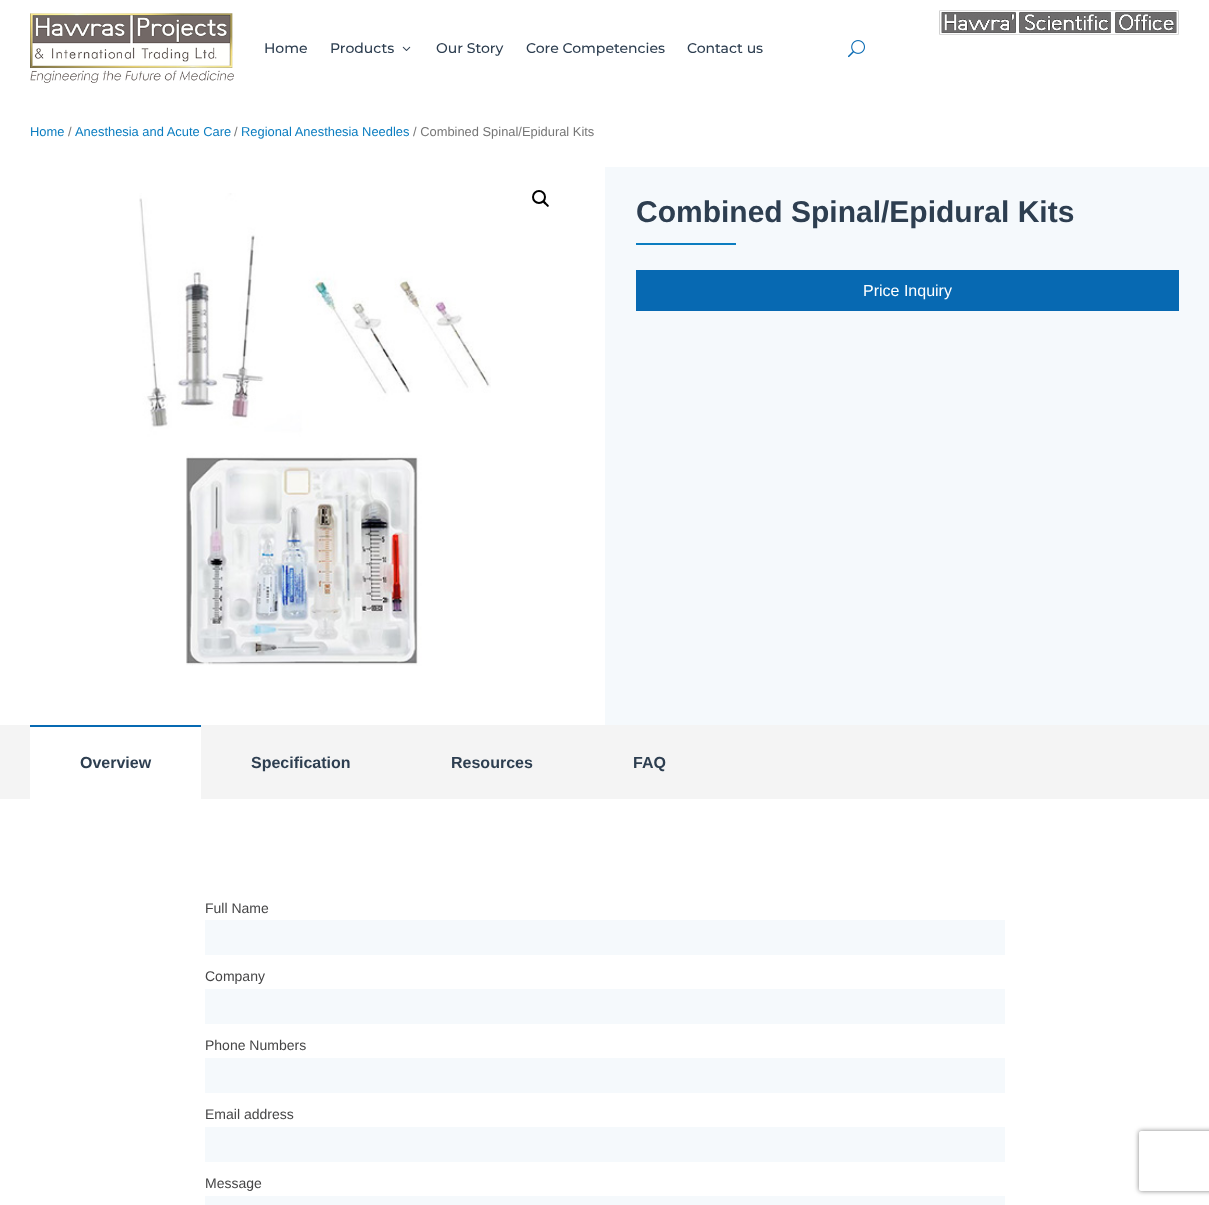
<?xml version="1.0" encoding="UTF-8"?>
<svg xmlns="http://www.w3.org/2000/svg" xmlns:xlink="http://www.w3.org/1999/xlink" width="1209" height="1205">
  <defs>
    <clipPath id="clip1"><path d="M 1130 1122 h 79 v 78 h -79 z m 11 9 h 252 c 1 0 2 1 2 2 v 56 c 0 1 -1 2 -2 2 h -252 c -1 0 -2 -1 -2 -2 v -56 c 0 -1 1 -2 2 -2 z" clip-rule="evenodd" /></clipPath>
  </defs>
  <rect width="100%" height="100%" fill="#ffffff" />
  <image x="939" y="10" width="240" height="25" xlink:href="image1.png" />
  <image x="30" y="13" width="204" height="70" xlink:href="image2.png" />
  <image x="402" y="46" width="9" height="5" xlink:href="image3.png" />
  <image x="848" y="40" width="17" height="18" xlink:href="image4.png" />
  <rect x="605" y="167" width="604" height="558" fill="#f5f9fc" />
  <image x="139" y="193" width="352" height="473" xlink:href="image5.png" />
  <circle cx="539" cy="197" r="6" fill="none" stroke="#000000" stroke-width="2" />
  <path d="M 543 201 c 1.5 -1 3 1.5 3.5 2 c 0.5 1 3.5 2.5 2 3.5 c -1 1.5 -2.5 -1.5 -3.5 -2 c -0.5 -0.5 -3 -2.5 -2 -3.5 z" fill="#000000" />
  <rect x="636" y="243" width="100" height="2" fill="#0b7dc0" />
  <rect x="636" y="270" width="543" height="41" fill="#0769b2" />
  <rect y="725" width="1209" height="74" fill="#f4f4f4" />
  <rect x="30" y="727" width="171" height="72" fill="#ffffff" />
  <rect x="30" y="725" width="171" height="2" fill="#0769b2" />
  <rect x="205" y="920" width="800" height="35" fill="#f5f9fc" />
  <rect x="205" y="989" width="800" height="35" fill="#f5f9fc" />
  <rect x="205" y="1058" width="800" height="35" fill="#f5f9fc" />
  <rect x="205" y="1127" width="800" height="35" fill="#f5f9fc" />
  <rect x="205" y="1196" width="800" height="9" fill="#f5f9fc" />
  <g clip-path="url(#clip1)">
    <rect x="1139" y="1131" width="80" height="60" rx="2" fill="#808080" filter="blur(2.5px)" />
  </g>
  <text x="264" y="53" style="font-family: Montserrat; font-size: 14px; font-weight: 500; fill: #2d3e50">Home</text>
  <text x="330" y="53" style="font-family: Montserrat; font-size: 14px; font-weight: 500; fill: #2d3e50">Products</text>
  <text x="436" y="53" style="font-family: Montserrat; font-size: 14px; font-weight: 500; fill: #2d3e50">Our Story</text>
  <text x="526" y="53" style="font-family: Montserrat; font-size: 14px; font-weight: 500; fill: #2d3e50">Core Competencies</text>
  <text x="687" y="53" style="font-family: Montserrat; font-size: 14px; font-weight: 500; fill: #2d3e50">Contact us</text>
  <text x="30" y="136" style="font-family: Liberation Sans; font-size: 12.9px; fill: #0b7dc0">Home</text>
  <text x="68" y="136" style="font-family: Liberation Sans; font-size: 12.9px; fill: #767676">/</text>
  <text x="75" y="136" style="font-family: Liberation Sans; font-size: 12.9px; fill: #0b7dc0">Anesthesia and Acute Care</text>
  <text x="234" y="136" style="font-family: Liberation Sans; font-size: 12.9px; fill: #767676">/</text>
  <text x="241" y="136" style="font-family: Liberation Sans; font-size: 12.9px; fill: #0b7dc0">Regional Anesthesia Needles</text>
  <text x="413" y="136" style="font-family: Liberation Sans; font-size: 12.9px; fill: #767676">/ Combined Spinal/Epidural Kits</text>
  <text x="636" y="222" style="font-family: Liberation Sans; font-size: 30px; font-weight: bold; fill: #2d3e50">Combined Spinal/Epidural Kits</text>
  <text x="863" y="296" style="font-family: Liberation Sans; font-size: 16px; fill: #ffffff">Price Inquiry</text>
  <text x="80" y="768" style="font-family: Liberation Sans; font-size: 16px; font-weight: bold; fill: #2d3e50">Overview</text>
  <text x="251" y="768" style="font-family: Liberation Sans; font-size: 16px; font-weight: bold; fill: #2d3e50">Specification</text>
  <text x="451" y="768" style="font-family: Liberation Sans; font-size: 16px; font-weight: bold; fill: #2d3e50">Resources</text>
  <text x="633" y="768" style="font-family: Liberation Sans; font-size: 16px; font-weight: bold; fill: #2d3e50">FAQ</text>
  <text x="205" y="913" style="font-family: Liberation Sans; font-size: 14px; fill: #454546">Full Name</text>
  <text x="205" y="981" style="font-family: Liberation Sans; font-size: 14px; fill: #454546">Company</text>
  <text x="205" y="1050" style="font-family: Liberation Sans; font-size: 14px; fill: #454546">Phone Numbers</text>
  <text x="205" y="1119" style="font-family: Liberation Sans; font-size: 14px; fill: #454546">Email address</text>
  <text x="205" y="1188" style="font-family: Liberation Sans; font-size: 14px; fill: #454546">Message</text>
</svg>
